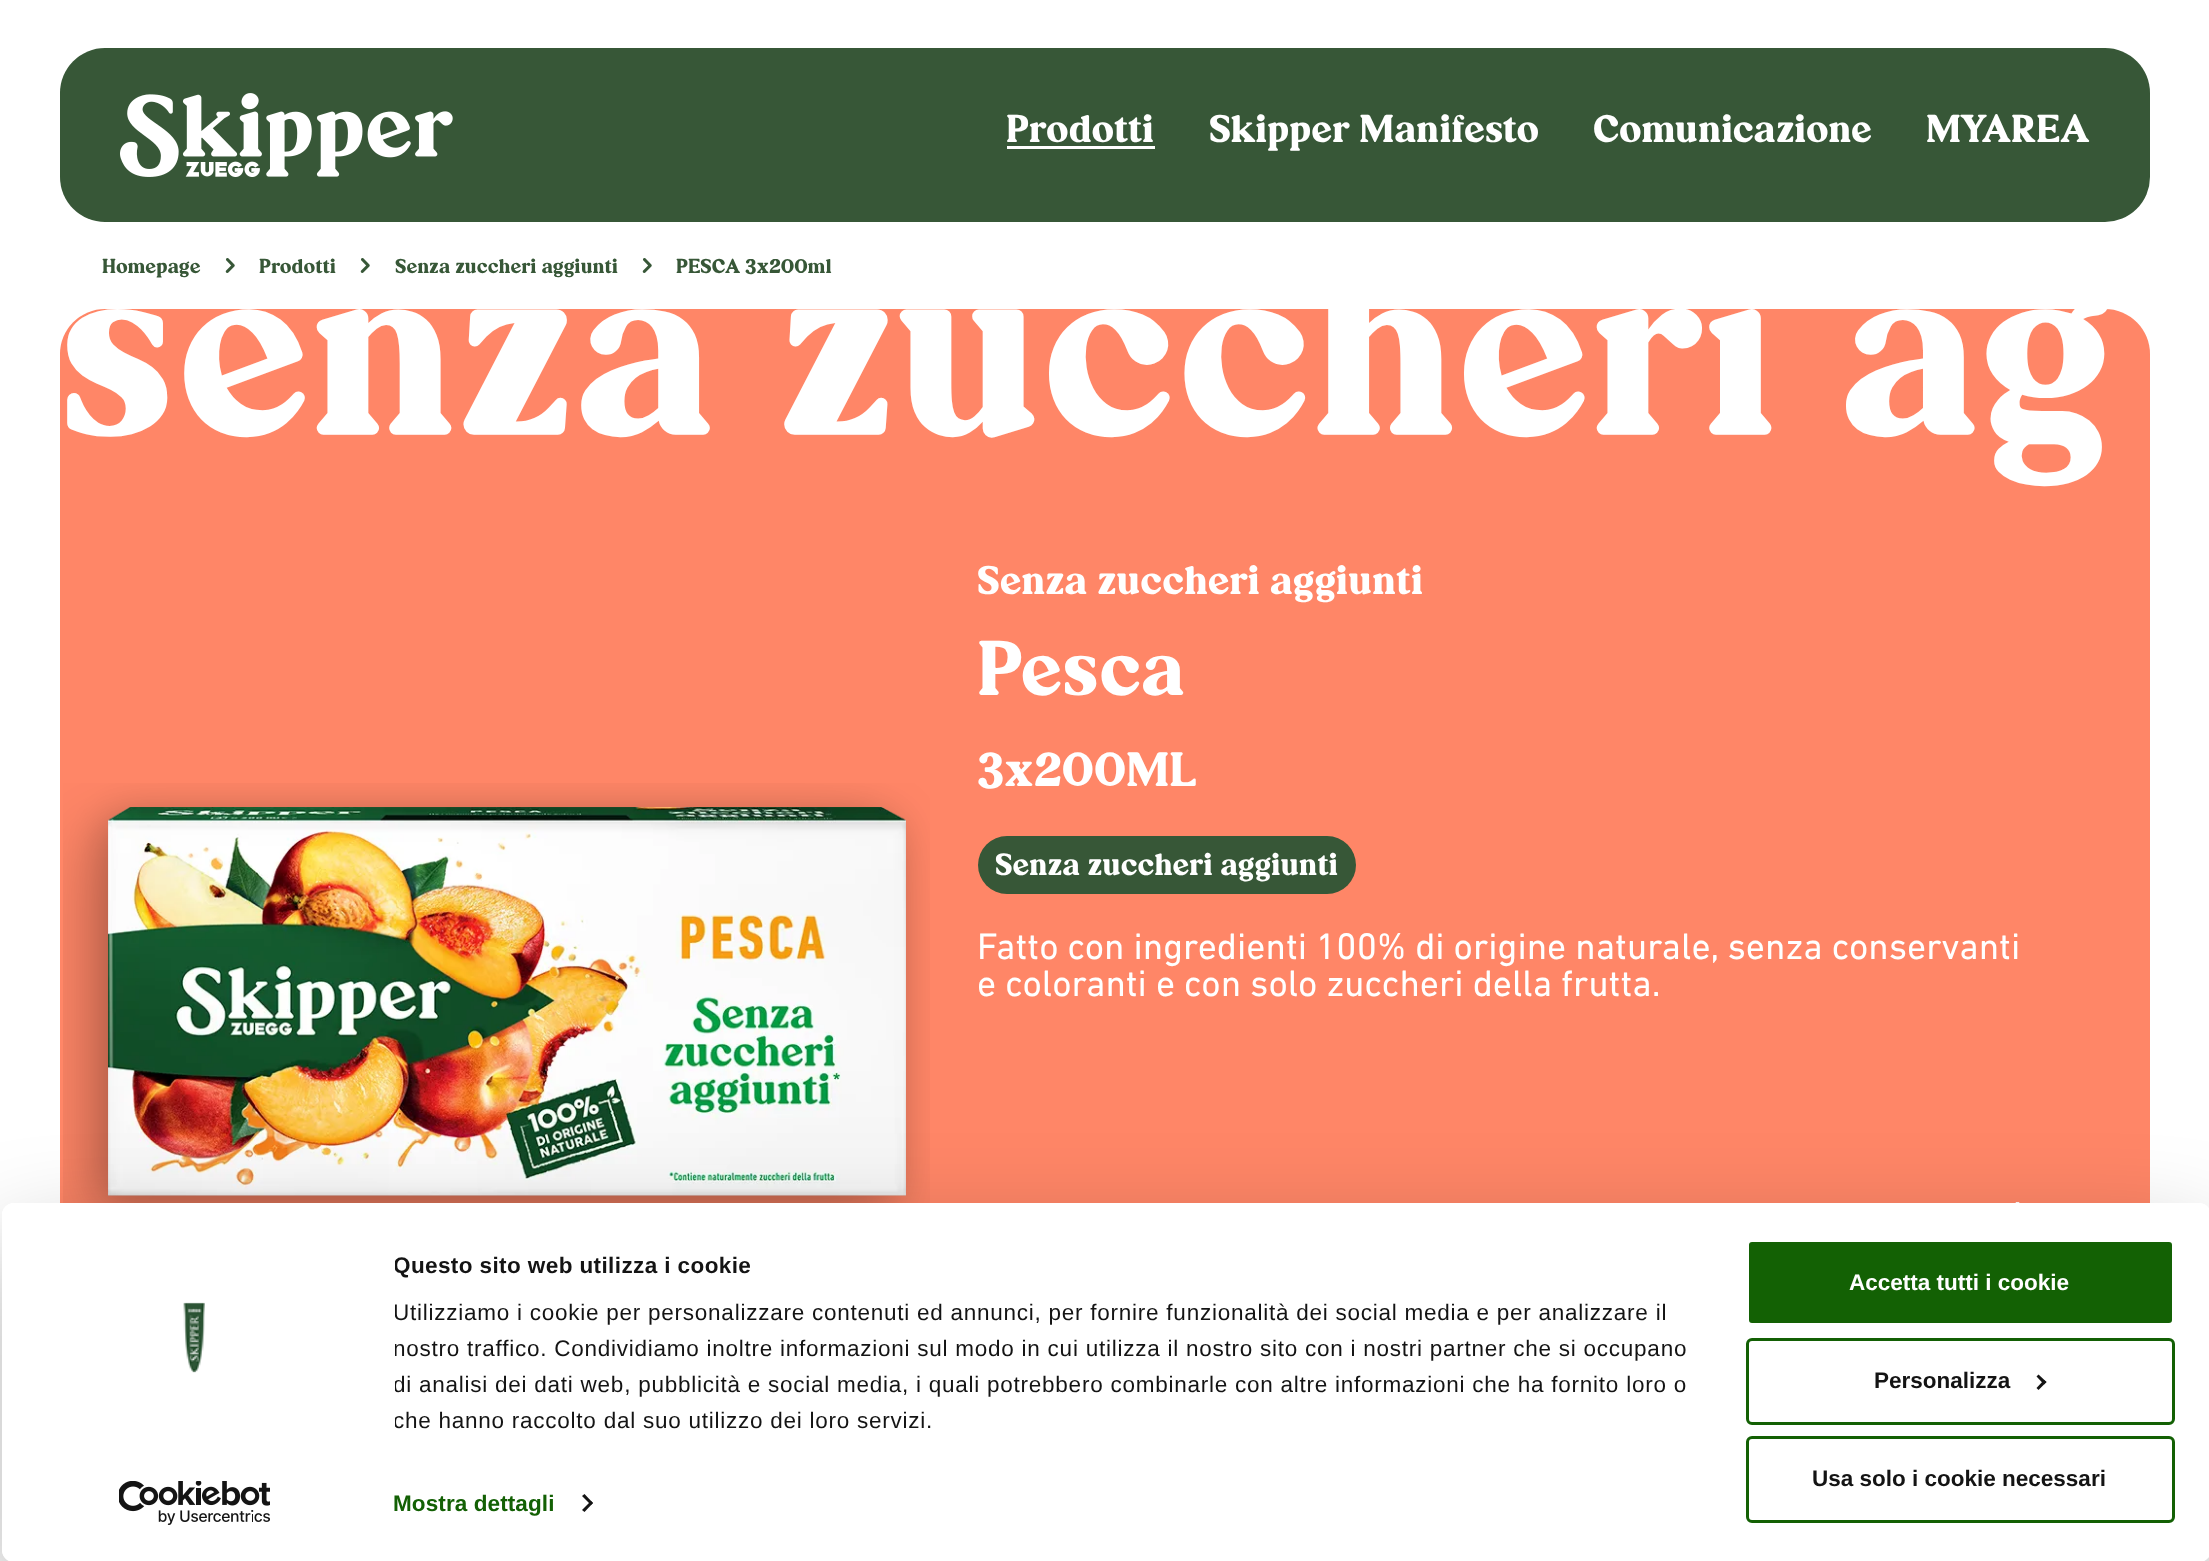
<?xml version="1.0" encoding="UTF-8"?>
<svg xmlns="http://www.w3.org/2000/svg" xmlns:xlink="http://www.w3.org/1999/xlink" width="2209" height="1561">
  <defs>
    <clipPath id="clip1"><path d="M 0 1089 h 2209 v 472 h -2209 z m 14 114 h 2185 c 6.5 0 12 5.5 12 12 v 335 c 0 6.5 -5.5 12 -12 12 h -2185 c -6.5 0 -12 -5.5 -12 -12 v -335 c 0 -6.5 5.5 -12 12 -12 z" clip-rule="evenodd" /></clipPath>
    <clipPath id="clip2"><rect x="60" y="309" width="2090" height="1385" rx="45" /></clipPath>
    <clipPath id="clip3"><rect x="395" y="1248" width="1342" height="191" /></clipPath>
  </defs>
  <rect width="100%" height="100%" fill="#ffffff" />
  <rect x="60" y="48" width="2090" height="174" rx="45" fill="#375737" />
  <image x="120" y="93" width="333" height="84" xlink:href="image1.png" />
  <rect x="1007" y="146" width="148" height="3" fill="#ffffff" />
  <image x="225" y="258" width="10" height="15" xlink:href="image2.png" />
  <image x="360" y="258" width="10" height="15" xlink:href="image2.png" />
  <image x="642" y="258" width="10" height="15" xlink:href="image2.png" />
  <rect x="60" y="309" width="2090" height="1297" rx="45" fill="#ff8667" />
  <image x="63" y="783" width="867" height="420" xlink:href="image3.png" />
  <rect x="978" y="836" width="378" height="58" rx="29" fill="#375737" />
  <image x="2015" y="1202" width="5" height="1" xlink:href="image4.png" />
  <g clip-path="url(#clip1)">
    <rect x="2" y="1248" width="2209" height="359" rx="12" fill="#000000" fill-opacity="0.3" filter="blur(52.5px)" />
  </g>
  <rect x="2" y="1203" width="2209" height="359" rx="12" fill="#ffffff" />
  <image x="183" y="1302" width="22" height="71" xlink:href="image5.png" />
  <image x="119" y="1481" width="151" height="44" xlink:href="image6.png" />
  <path d="M 584.5 1494 l 8.5 9 l -2 2 l -9 -9 z" fill="#141414" />
  <path d="M 591 1501 l 2 2 l -8.5 9 l -2.5 -2 z" fill="#141414" />
  <rect x="1747.5" y="1240.5" width="426" height="84" rx="4.5" fill="#136104" stroke="#ffffff" stroke-width="3" />
  <rect x="1747.5" y="1339.5" width="426" height="84" rx="4.5" fill="none" stroke="#136004" stroke-width="3" />
  <path d="M 2038.5 1374.5 l 8 7.5 l -2.5 2.5 l -7.5 -8 z" fill="#141414" />
  <path d="M 2044 1380 l 2.5 2 l -8 8 l -2 -2 z" fill="#141414" />
  <rect x="1747.5" y="1437.5" width="426" height="84" rx="4.5" fill="none" stroke="#136004" stroke-width="3" />
  <text x="1006" y="142" style="font-family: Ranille; font-size: 37.5px; fill: #ffffff">Prodotti</text>
  <text x="1209" y="142" style="font-family: Ranille; font-size: 37.5px; fill: #ffffff">Skipper Manifesto</text>
  <text x="1593" y="142" style="font-family: Ranille; font-size: 37.5px; fill: #ffffff">Comunicazione</text>
  <text x="1926" y="142" style="font-family: Ranille; font-size: 37.5px; fill: #ffffff">MYAREA</text>
  <text x="102" y="273" style="font-family: Ranille; font-size: 19.5px; fill: #375737">Homepage</text>
  <text x="259" y="273" style="font-family: Ranille; font-size: 19.5px; fill: #375737">Prodotti</text>
  <text x="395" y="273" style="font-family: Ranille; font-size: 19.5px; fill: #375737">Senza zuccheri aggiunti</text>
  <text x="676" y="273" style="font-family: Ranille; font-size: 19.5px; fill: #375737">PESCA 3x200ml</text>
  <g clip-path="url(#clip2)">
    <text x="60" y="435" style="font-family: Ranille; font-size: 240px; fill: #ffffff">senza zuccheri ag</text>
  </g>
  <text x="977" y="594" style="font-family: Ranille; font-size: 39px; fill: #ffffff">Senza zuccheri aggiunti</text>
  <text x="977" y="695" style="font-family: Ranille; font-size: 75px; fill: #ffffff">Pesca</text>
  <text x="977" y="786" style="font-family: Ranille; font-size: 46.5px; fill: #ffffff">3x200ML</text>
  <text x="995" y="875" style="font-family: Ranille; font-size: 30px; fill: #ffffff">Senza zuccheri aggiunti</text>
  <text x="977" y="959" style="font-family: DIN Next; font-size: 37.5px; fill: #ffffff">Fatto con ingredienti 100% di origine naturale, senza conservanti</text>
  <text x="977" y="996" style="font-family: DIN Next; font-size: 37.5px; fill: #ffffff">e coloranti e con solo zuccheri della frutta.</text>
  <g clip-path="url(#clip3)">
    <text x="393" y="1273" style="font-family: Liberation Sans; font-size: 22.5px; font-weight: bold; letter-spacing: 0.4px; fill: #141414">Questo sito web utilizza i cookie</text>
    <text x="393" y="1320" style="font-family: Liberation Sans; font-size: 22.5px; letter-spacing: 0.75px; fill: #141414">Utilizziamo i cookie per personalizzare contenuti ed annunci, per fornire funzionalità dei social media e per analizzare il</text>
    <text x="393" y="1356" style="font-family: Liberation Sans; font-size: 22.5px; letter-spacing: 0.75px; fill: #141414">nostro traffico. Condividiamo inoltre informazioni sul modo in cui utilizza il nostro sito con i nostri partner che si occupano</text>
    <text x="393" y="1392" style="font-family: Liberation Sans; font-size: 22.5px; letter-spacing: 0.75px; fill: #141414">di analisi dei dati web, pubblicità e social media, i quali potrebbero combinarle con altre informazioni che ha fornito loro o</text>
    <text x="393" y="1428" style="font-family: Liberation Sans; font-size: 22.5px; letter-spacing: 0.75px; fill: #141414">che hanno raccolto dal suo utilizzo dei loro servizi.</text>
  </g>
  <text x="393" y="1511" style="font-family: Liberation Sans; font-size: 22.5px; font-weight: bold; letter-spacing: 0.1px; fill: #136004">Mostra dettagli</text>
  <text x="1849" y="1290" style="font-family: Liberation Sans; font-size: 22.5px; font-weight: bold; fill: #ffffff">Accetta tutti i cookie</text>
  <text x="1874" y="1388" style="font-family: Liberation Sans; font-size: 22.5px; font-weight: bold; fill: #141414">Personalizza</text>
  <text x="1812" y="1486" style="font-family: Liberation Sans; font-size: 22.5px; font-weight: bold; fill: #141414">Usa solo i cookie necessari</text>
</svg>
